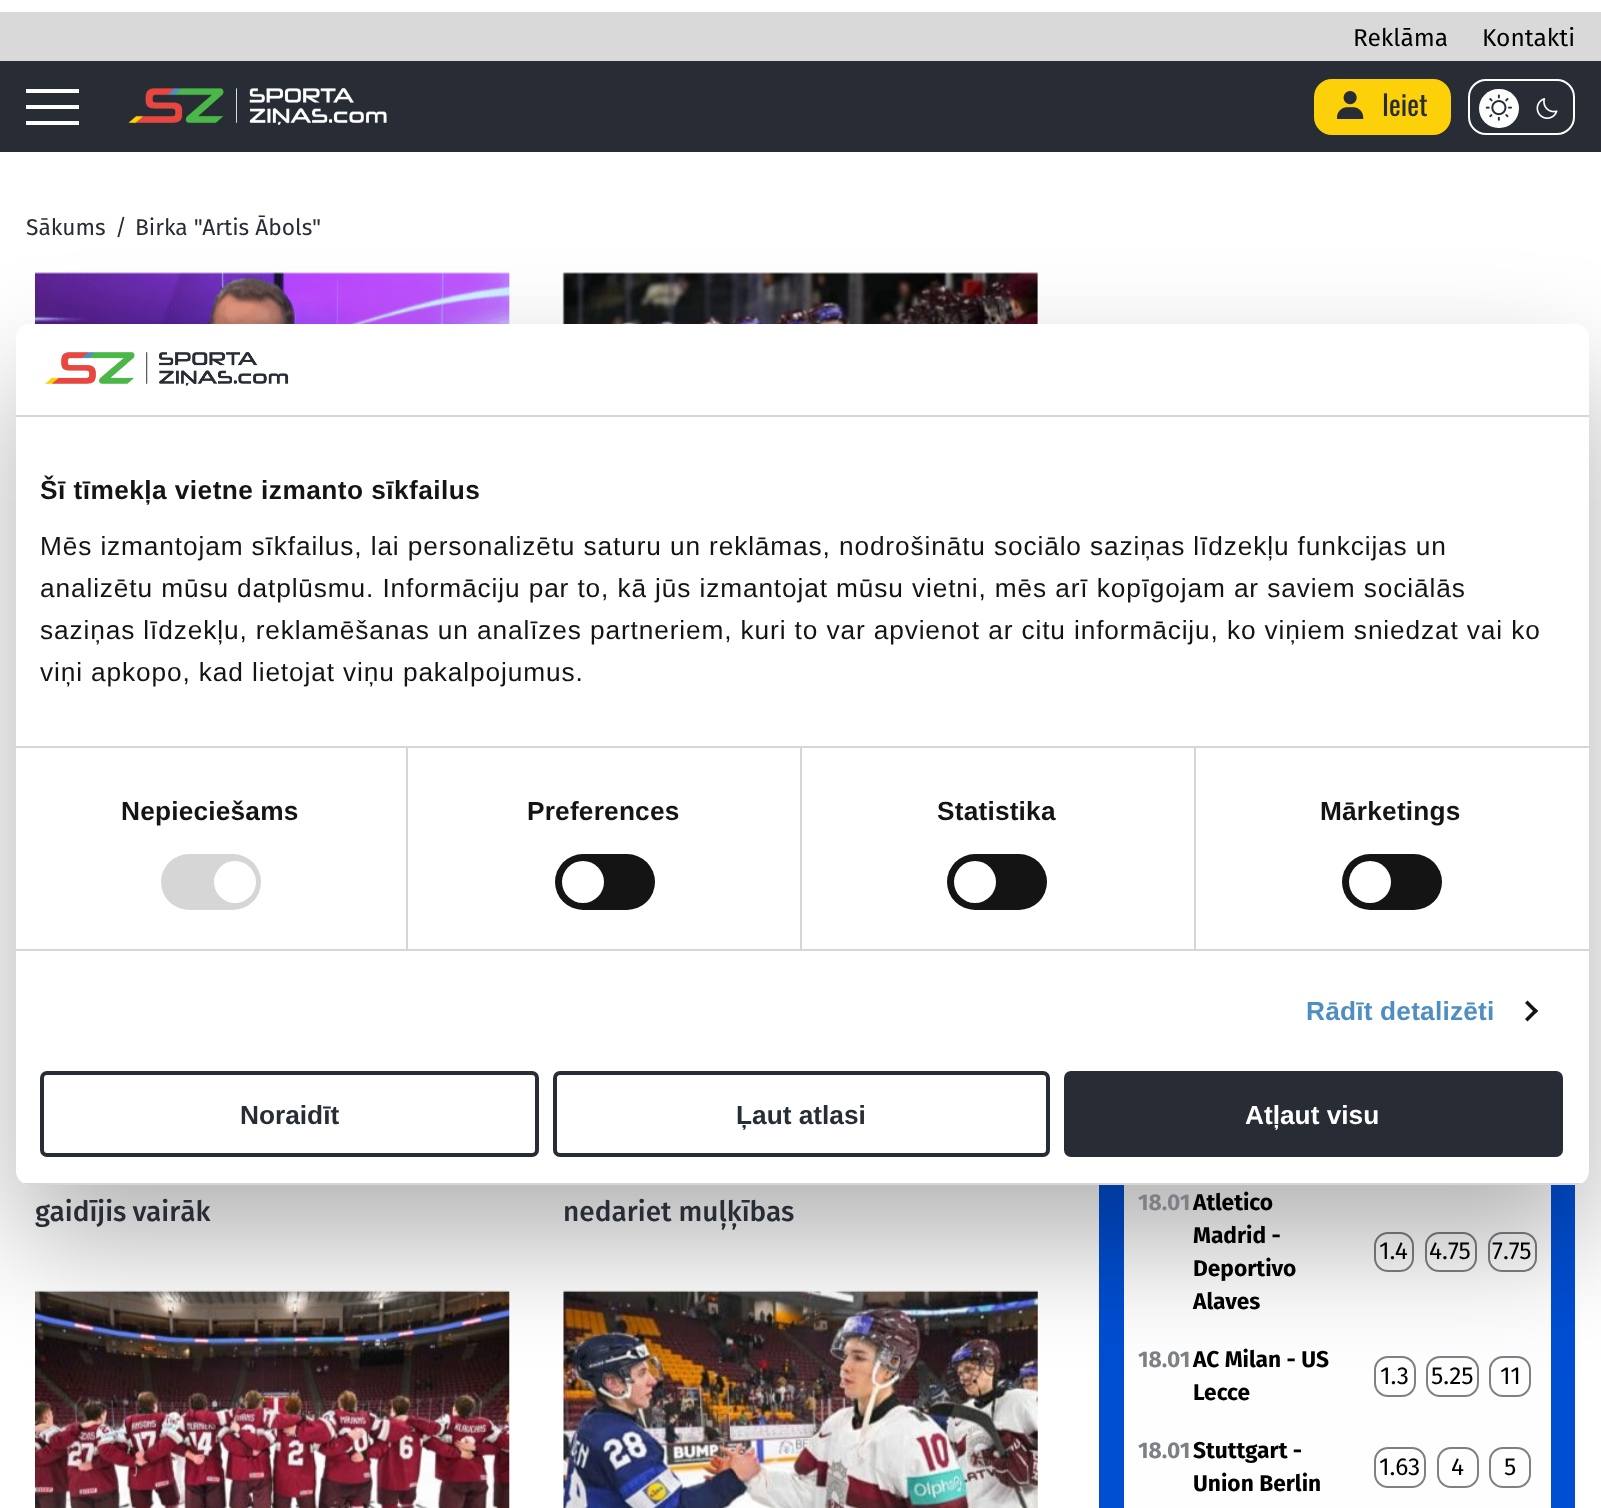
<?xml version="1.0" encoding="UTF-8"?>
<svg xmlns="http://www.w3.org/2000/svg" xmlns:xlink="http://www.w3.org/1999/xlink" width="1601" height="1508">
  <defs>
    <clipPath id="clip1"><rect x="16" y="324" width="1573" height="861" rx="14" /></clipPath>
  </defs>
  <rect width="100%" height="100%" fill="#ffffff" />
  <rect y="12" width="1601" height="49" fill="#d9d9d9" />
  <rect y="61" width="1601" height="91" fill="#272c35" />
  <rect x="26" y="89" width="53" height="4" fill="#fefefe" />
  <rect x="26" y="105" width="53" height="4" fill="#fefefe" />
  <rect x="26" y="121" width="53" height="4" fill="#fefefe" />
  <image x="128" y="88" width="259" height="37" xlink:href="image1.png" />
  <rect x="1315" y="80" width="135" height="54" rx="17" fill="#fdd10a" stroke="#fdd10a" stroke-width="2" />
  <image x="1337" y="91" width="27" height="28" xlink:href="image2.png" />
  <rect x="1469" y="80" width="105" height="54" rx="17" fill="none" stroke="#fefefe" stroke-width="2" />
  <rect x="1479" y="89" width="40" height="39" rx="19.5" fill="#fefefe" />
  <image x="1485" y="94" width="27" height="27" xlink:href="image3.png" />
  <image x="1536" y="98" width="22" height="21" xlink:href="image4.png" />
  <image x="35" y="272" width="475" height="52" xlink:href="image5.png" />
  <image x="562" y="272" width="476" height="52" xlink:href="image6.png" />
  <image x="35" y="1290" width="475" height="218" xlink:href="image7.png" />
  <image x="563" y="1290" width="475" height="218" xlink:href="image8.png" />
  <rect x="1099" y="1185" width="476" height="323" fill="#004ed2" />
  <rect x="1124" y="1185" width="427" height="323" fill="#fefefe" />
  <rect x="1375" y="1233" width="38" height="38" rx="13" fill="none" stroke="#7d8085" stroke-width="2" />
  <rect x="1426" y="1233" width="50" height="38" rx="13" fill="none" stroke="#7d8085" stroke-width="2" />
  <rect x="1489" y="1233" width="47" height="38" rx="13" fill="none" stroke="#7d8085" stroke-width="2" />
  <rect x="1375" y="1357" width="40" height="39" rx="13" fill="none" stroke="#7d8085" stroke-width="2" />
  <rect x="1427" y="1357" width="51" height="39" rx="13" fill="none" stroke="#7d8085" stroke-width="2" />
  <rect x="1490" y="1357" width="40" height="39" rx="13" fill="none" stroke="#7d8085" stroke-width="2" />
  <rect x="1375" y="1448" width="50" height="39" rx="13" fill="none" stroke="#7d8085" stroke-width="2" />
  <rect x="1438" y="1448" width="40" height="39" rx="13" fill="none" stroke="#7d8085" stroke-width="2" />
  <rect x="1490" y="1448" width="40" height="39" rx="13" fill="none" stroke="#7d8085" stroke-width="2" />
  <rect x="16" y="380" width="1573" height="861" rx="14" fill="#000000" fill-opacity="0.3" filter="blur(59.5px)" />
  <rect x="16" y="324" width="1573" height="861" rx="14" fill="#ffffff" />
  <rect x="16" y="415" width="1573" height="2" fill="#d6d6d6" />
  <image x="45" y="352" width="244" height="34" xlink:href="image9.png" />
  <rect x="406" y="747" width="2" height="202" fill="#d6d6d6" />
  <rect x="800" y="747" width="2" height="202" fill="#d6d6d6" />
  <rect x="1194" y="747" width="2" height="202" fill="#d6d6d6" />
  <rect x="16" y="746" width="1573" height="2" fill="#d6d6d6" />
  <rect x="16" y="949" width="1573" height="2" fill="#d6d6d6" />
  <rect x="161" y="854" width="100" height="56" rx="28" fill="#d6d6d6" />
  <circle cx="235" cy="882" r="21" fill="#ffffff" />
  <rect x="555" y="854" width="100" height="56" rx="28" fill="#141414" />
  <circle cx="583" cy="882" r="21" fill="#ffffff" />
  <rect x="947" y="854" width="100" height="56" rx="28" fill="#141414" />
  <circle cx="975" cy="882" r="21" fill="#ffffff" />
  <rect x="1342" y="854" width="100" height="56" rx="28" fill="#141414" />
  <circle cx="1370" cy="882" r="21" fill="#ffffff" />
  <path d="M 1527.5 1000.5 l 10.5 10.5 l -2.5 2.5 l -10.5 -10.5 z" fill="#141414" />
  <path d="M 1535.5 1008.5 l 2.5 2.5 l -10.5 10.5 l -2.5 -2.5 z" fill="#141414" />
  <g clip-path="url(#clip1)">
    <rect x="16" y="1183" width="1573" height="2" fill="#d6d6d6" />
  </g>
  <rect x="42" y="1073" width="495" height="82" rx="5" fill="none" stroke="#272c35" stroke-width="4" />
  <rect x="555" y="1073" width="493" height="82" rx="5" fill="none" stroke="#272c35" stroke-width="4" />
  <rect x="1066" y="1073" width="495" height="82" rx="5" fill="#272c35" stroke="#272c35" stroke-width="4" />
  <text x="1353" y="46" style="font-family: Fira Sans; font-size: 24.5px; fill: #000000">Reklāma</text>
  <text x="1482" y="46" style="font-family: Fira Sans; font-size: 24.5px; fill: #000000">Kontakti</text>
  <text x="1382" y="116" style="font-family: Oswald; font-size: 28px; fill: #272c35">Ieiet</text>
  <text x="26" y="235" style="font-family: Fira Sans; font-size: 22.75px; fill: #272c35">Sākums</text>
  <text x="115" y="235" style="font-family: Fira Sans; font-size: 22.75px; fill: #272c35">/</text>
  <text x="135" y="235" style="font-family: Fira Sans; font-size: 22.75px; fill: #272c35">Birka "Artis Ābols"</text>
  <text x="35" y="1221" word-spacing="-1" style="font-family: Fira Sans; font-size: 28px; font-weight: 500; fill: #272c35">gaidījis vairāk</text>
  <text x="563" y="1221" style="font-family: Fira Sans; font-size: 28px; font-weight: 500; fill: #272c35">nedariet muļķības</text>
  <text x="1138" y="1210" style="font-family: Fira Sans; font-size: 22.75px; font-weight: bold; fill: #7d8085">18.01</text>
  <text x="1193" y="1210" style="font-family: Fira Sans; font-size: 22.75px; font-weight: bold; fill: #000000">Atletico</text>
  <text x="1193" y="1243" style="font-family: Fira Sans; font-size: 22.75px; font-weight: bold; fill: #000000">Madrid -</text>
  <text x="1193" y="1276" style="font-family: Fira Sans; font-size: 22.75px; font-weight: bold; fill: #000000">Deportivo</text>
  <text x="1193" y="1309" style="font-family: Fira Sans; font-size: 22.75px; font-weight: bold; fill: #000000">Alaves</text>
  <text x="1379" y="1259" style="font-family: Fira Sans; font-size: 24.5px; fill: #000000">1.4</text>
  <text x="1429" y="1259" style="font-family: Fira Sans; font-size: 24.5px; fill: #000000">4.75</text>
  <text x="1492" y="1259" style="font-family: Fira Sans; font-size: 24.5px; fill: #000000">7.75</text>
  <text x="1138" y="1367" style="font-family: Fira Sans; font-size: 22.75px; font-weight: bold; fill: #7d8085">18.01</text>
  <text x="1193" y="1367" style="font-family: Fira Sans; font-size: 22.75px; font-weight: bold; fill: #000000">AC Milan - US</text>
  <text x="1193" y="1400" style="font-family: Fira Sans; font-size: 22.75px; font-weight: bold; fill: #000000">Lecce</text>
  <text x="1380" y="1384" style="font-family: Fira Sans; font-size: 24.5px; fill: #000000">1.3</text>
  <text x="1431" y="1384" style="font-family: Fira Sans; font-size: 24.5px; fill: #000000">5.25</text>
  <text x="1500" y="1384" style="font-family: Fira Sans; font-size: 24.5px; fill: #000000">11</text>
  <text x="1138" y="1458" style="font-family: Fira Sans; font-size: 22.75px; font-weight: bold; fill: #7d8085">18.01</text>
  <text x="1193" y="1458" style="font-family: Fira Sans; font-size: 22.75px; font-weight: bold; fill: #000000">Stuttgart -</text>
  <text x="1193" y="1491" style="font-family: Fira Sans; font-size: 22.75px; font-weight: bold; fill: #000000">Union Berlin</text>
  <text x="1379" y="1475" style="font-family: Fira Sans; font-size: 24.5px; fill: #000000">1.63</text>
  <text x="1451" y="1475" style="font-family: Fira Sans; font-size: 24.5px; fill: #000000">4</text>
  <text x="1504" y="1475" style="font-family: Fira Sans; font-size: 24.5px; fill: #000000">5</text>
  <text x="40" y="499" style="font-family: Liberation Sans; font-size: 26.25px; font-weight: bold; letter-spacing: 0.45px; fill: #141414">Šī tīmekļa vietne izmanto sīkfailus</text>
  <text x="40" y="555" style="font-family: Liberation Sans; font-size: 26.25px; letter-spacing: 0.88px; fill: #141414">Mēs izmantojam sīkfailus, lai personalizētu saturu un reklāmas, nodrošinātu sociālo saziņas līdzekļu funkcijas un</text>
  <text x="40" y="597" style="font-family: Liberation Sans; font-size: 26.25px; letter-spacing: 0.88px; fill: #141414">analizētu mūsu datplūsmu. Informāciju par to, kā jūs izmantojat mūsu vietni, mēs arī kopīgojam ar saviem sociālās</text>
  <text x="40" y="639" style="font-family: Liberation Sans; font-size: 26.25px; letter-spacing: 0.88px; fill: #141414">saziņas līdzekļu, reklamēšanas un analīzes partneriem, kuri to var apvienot ar citu informāciju, ko viņiem sniedzat vai ko</text>
  <text x="40" y="681" style="font-family: Liberation Sans; font-size: 26.25px; letter-spacing: 0.88px; fill: #141414">viņi apkopo, kad lietojat viņu pakalpojumus.</text>
  <text x="121" y="820" style="font-family: Liberation Sans; font-size: 26.25px; font-weight: bold; letter-spacing: 0.2px; fill: #141414">Nepieciešams</text>
  <text x="527" y="820" style="font-family: Liberation Sans; font-size: 26.25px; font-weight: bold; letter-spacing: 0.2px; fill: #141414">Preferences</text>
  <text x="937" y="820" style="font-family: Liberation Sans; font-size: 26.25px; font-weight: bold; letter-spacing: 0.2px; fill: #141414">Statistika</text>
  <text x="1320" y="820" style="font-family: Liberation Sans; font-size: 26.25px; font-weight: bold; letter-spacing: 0.2px; fill: #141414">Mārketings</text>
  <text x="1306" y="1020" style="font-family: Liberation Sans; font-size: 26.25px; font-weight: bold; letter-spacing: 0.2px; fill: #4f8ec1">Rādīt detalizēti</text>
  <text x="240" y="1124" style="font-family: Liberation Sans; font-size: 26.25px; font-weight: bold; fill: #272c35">Noraidīt</text>
  <text x="736" y="1124" style="font-family: Liberation Sans; font-size: 26.25px; font-weight: bold; fill: #272c35">Ļaut atlasi</text>
  <text x="1245" y="1124" style="font-family: Liberation Sans; font-size: 26.25px; font-weight: bold; fill: #ffffff">Atļaut visu</text>
</svg>
